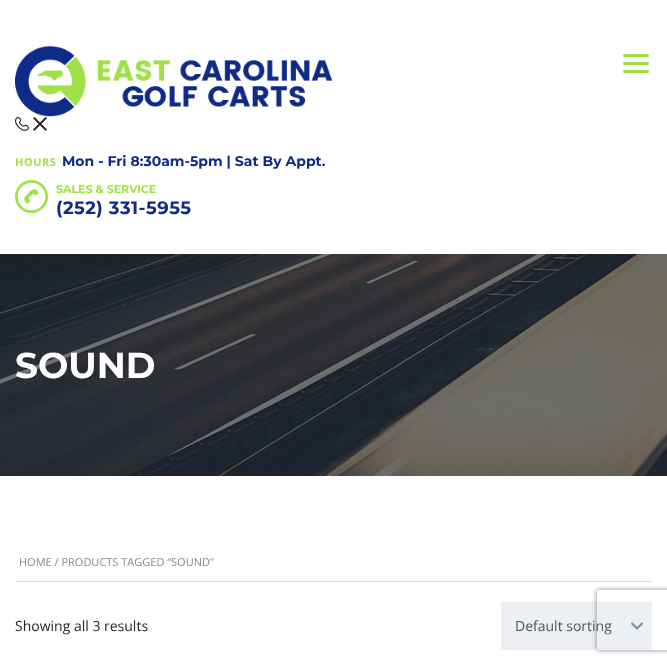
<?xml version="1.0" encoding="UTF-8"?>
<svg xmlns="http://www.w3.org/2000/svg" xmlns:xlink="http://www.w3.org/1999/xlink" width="667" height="664">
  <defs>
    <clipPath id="clip1"><path d="M 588 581 h 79 v 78 h -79 z m 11 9 h 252 c 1 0 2 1 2 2 v 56 c 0 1 -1 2 -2 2 h -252 c -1 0 -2 -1 -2 -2 v -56 c 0 -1 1 -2 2 -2 z" clip-rule="evenodd" /></clipPath>
  </defs>
  <rect width="100%" height="100%" fill="#ffffff" />
  <image x="15" y="116" width="14" height="15" xlink:href="image2.png" />
  <image x="15" y="45" width="318" height="72" xlink:href="image1.png" />
  <rect x="623" y="54" width="26" height="3" rx="1.5" fill="#9ddd46" />
  <rect x="623" y="62" width="26" height="3" rx="1.5" fill="#9ddd46" />
  <rect x="623" y="70" width="26" height="3" rx="1.5" fill="#9ddd46" />
  <image x="33" y="117" width="14" height="14" xlink:href="image3.png" />
  <image x="15" y="180" width="33" height="34" xlink:href="image4.png" />
  <image x="0" y="254" width="667" height="222" xlink:href="image5.png" />
  <rect x="15" y="581" width="637" height="1" fill="#dddddd" />
  <rect x="501" y="602" width="151" height="48" fill="#eceff3" />
  <image x="631" y="622" width="12" height="8" xlink:href="image6.png" />
  <g clip-path="url(#clip1)">
    <rect x="597" y="590" width="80" height="60" rx="2" fill="#808080" filter="blur(2.5px)" />
  </g>
  <text x="15" y="166" style="font-family: Open Sans; font-size: 11px; font-weight: bold; letter-spacing: 0.5px; fill: #a0e147">HOURS</text>
  <text x="62" y="166" style="font-family: Montserrat; font-size: 14px; font-weight: bold; fill: #102a87">Mon - Fri 8:30am-5pm | Sat By Appt.</text>
  <text x="56" y="193" style="font-family: Montserrat; font-size: 11px; font-weight: bold; fill: #a0e147">SALES &amp; SERVICE</text>
  <text x="56" y="214" style="font-family: Montserrat; font-size: 18px; font-weight: bold; letter-spacing: 0.5px; fill: #102a87">(252) 331-5955</text>
  <text x="15" y="378" style="font-family: Montserrat; font-size: 36px; font-weight: bold; fill: #ffffff">SOUND</text>
  <text x="19" y="566" style="font-family: Open Sans; font-size: 11px; fill: #888888">HOME / PRODUCTS TAGGED “SOUND”</text>
  <text x="15" y="631" style="font-family: Open Sans; font-size: 14px; fill: #232628">Showing all 3 results</text>
  <text x="515" y="631" style="font-family: Open Sans; font-size: 14px; fill: #555555">Default sorting</text>
</svg>
